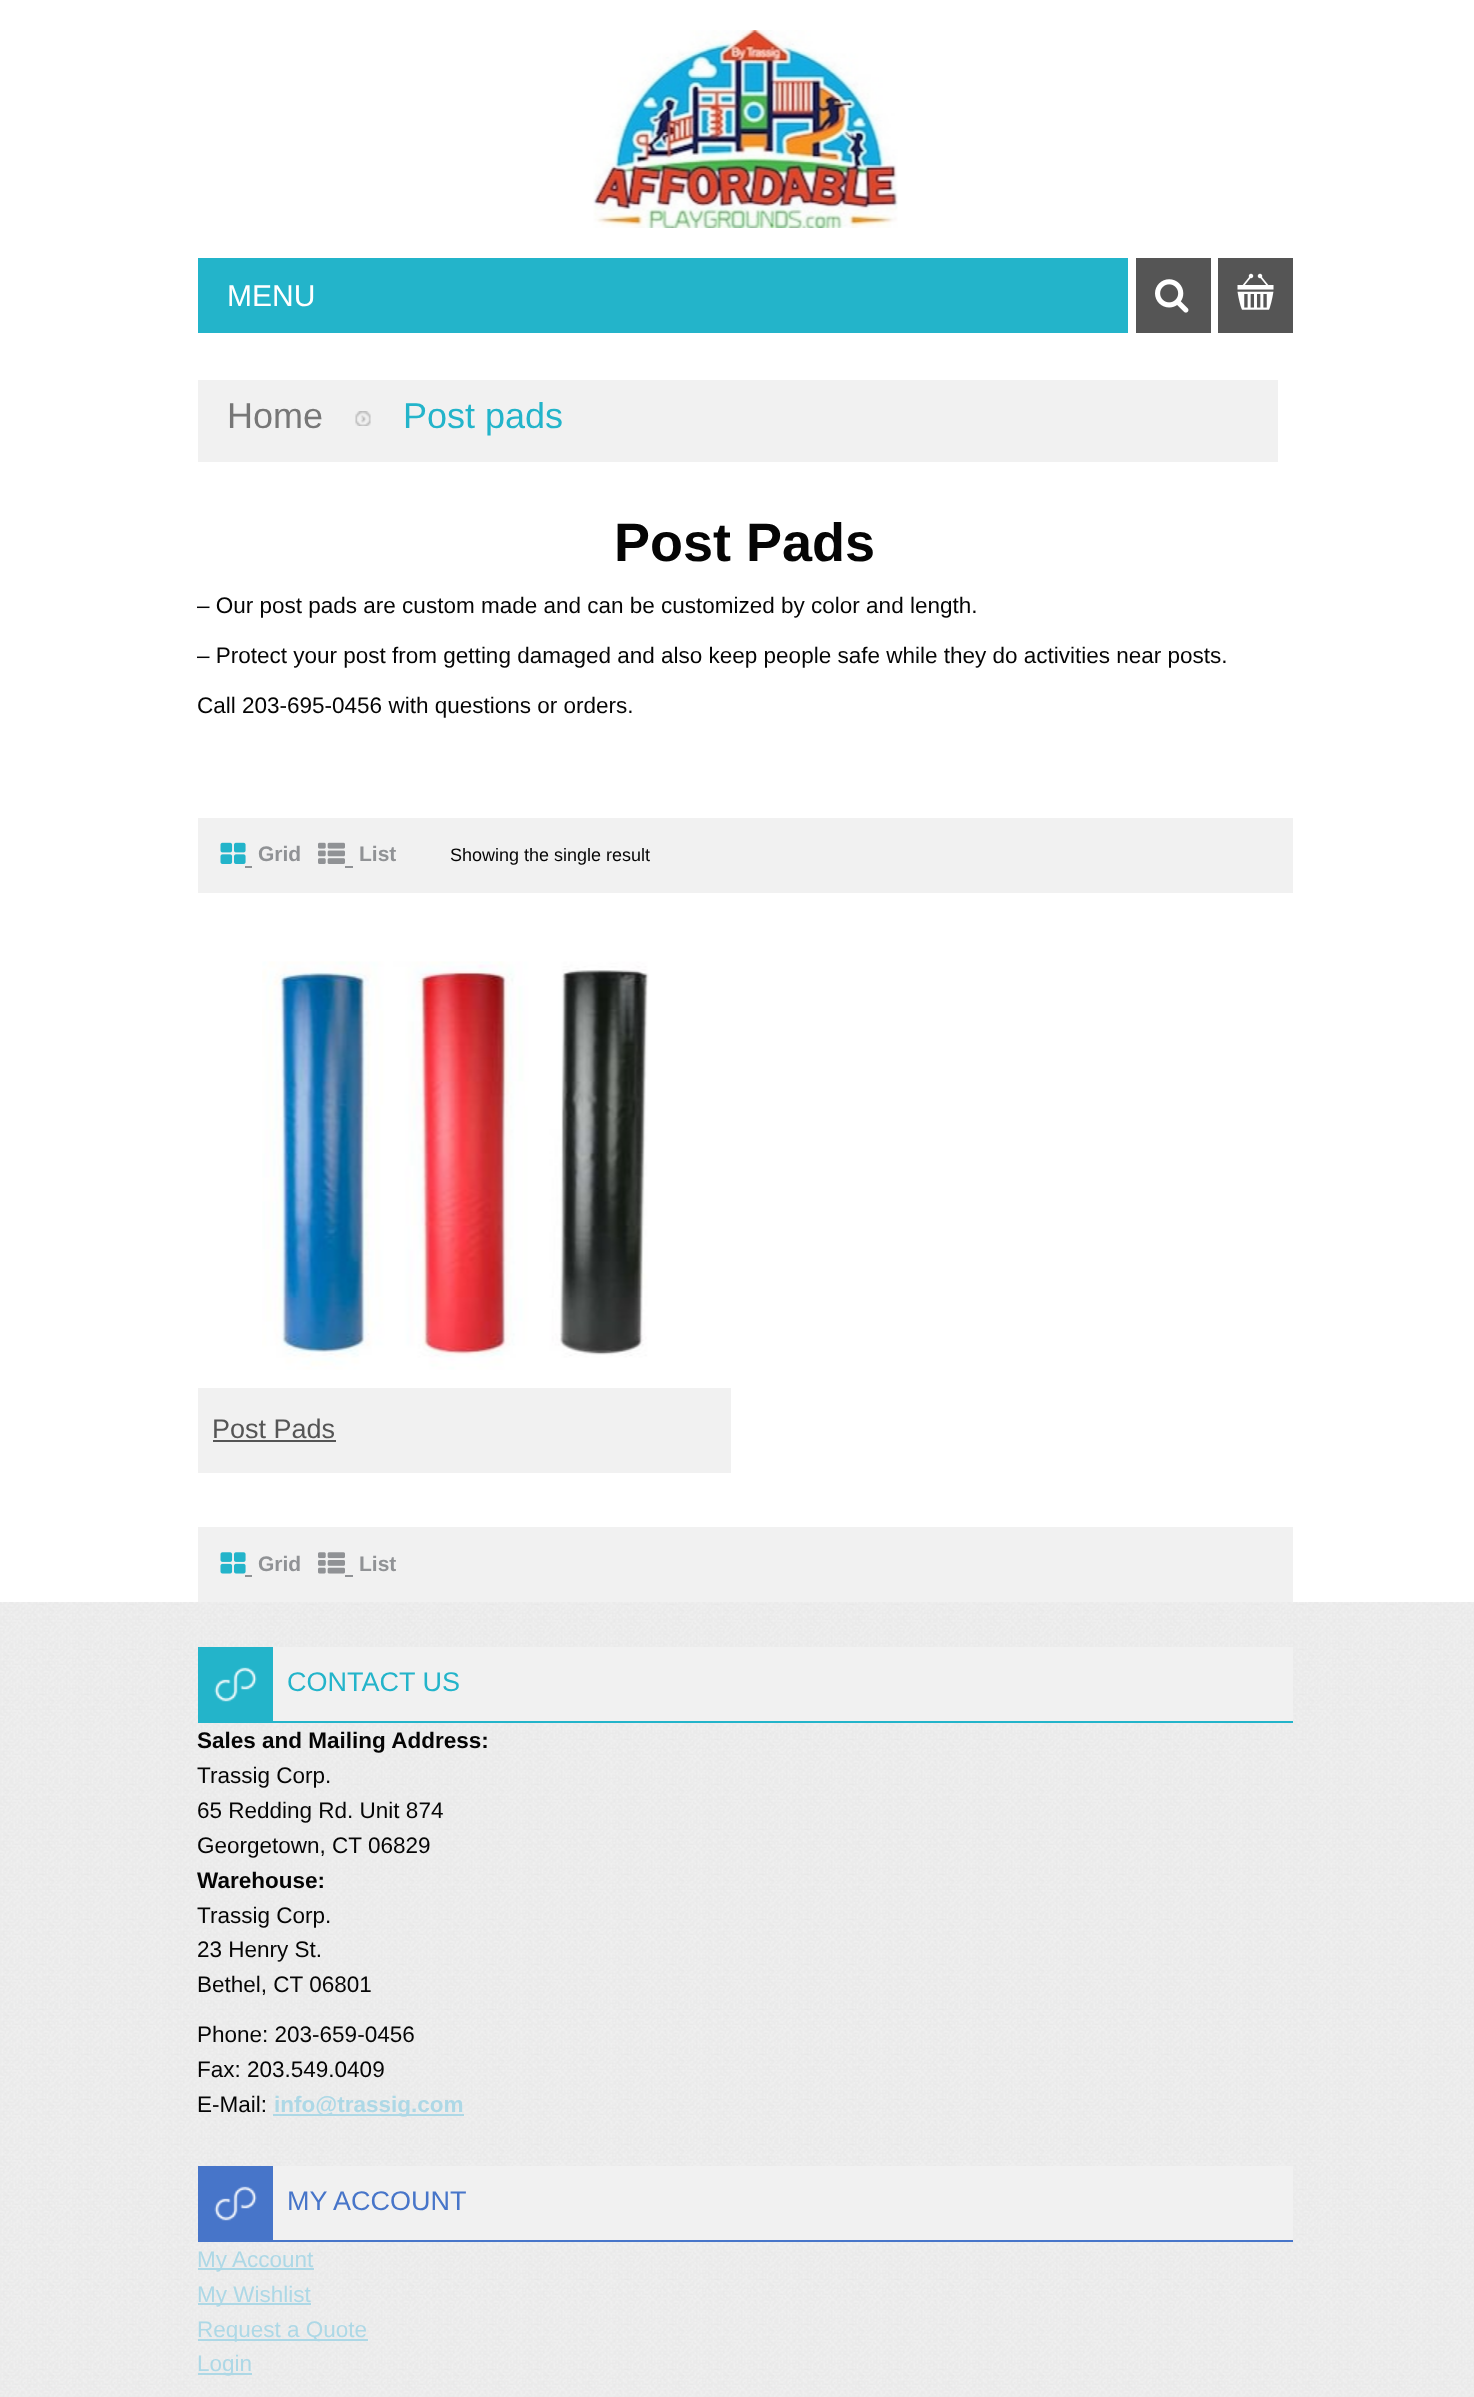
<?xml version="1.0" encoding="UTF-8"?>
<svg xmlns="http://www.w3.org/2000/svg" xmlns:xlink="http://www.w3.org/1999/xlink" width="1474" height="2397">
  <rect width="100%" height="100%" fill="#ffffff" />
  <image x="593" y="30" width="305" height="198" xlink:href="image1.png" />
  <rect x="198" y="258" width="930" height="75" fill="#23b4ca" />
  <rect x="1136" y="258" width="75" height="75" fill="#555555" />
  <image x="1155" y="279" width="34" height="34" xlink:href="image2.png" />
  <rect x="1218" y="258" width="75" height="75" fill="#555555" />
  <image x="1237" y="273" width="37" height="37" xlink:href="image3.png" />
  <rect x="198" y="380" width="1080" height="82" fill="#f1f1f1" />
  <image x="355" y="411" width="16" height="15" xlink:href="image4.png" />
  <rect x="198" y="818" width="1095" height="75" fill="#f1f1f1" />
  <image x="220" y="842" width="26" height="22" xlink:href="image5.png" />
  <rect x="245" y="866" width="7" height="2" fill="#909295" />
  <image x="318" y="842" width="27" height="22" xlink:href="image6.png" />
  <rect x="345" y="866" width="8" height="2" fill="#909295" />
  <image x="262" y="961" width="387" height="409" xlink:href="image7.png" />
  <rect x="198" y="1388" width="533" height="85" fill="#f1f1f1" />
  <rect x="213" y="1440" width="123" height="2" fill="#555555" />
  <rect x="198" y="1527" width="1095" height="75" fill="#f1f1f1" />
  <image x="220" y="1552" width="26" height="22" xlink:href="image8.png" />
  <rect x="245" y="1575" width="7" height="2" fill="#909295" />
  <image x="318" y="1552" width="27" height="22" xlink:href="image9.png" />
  <rect x="345" y="1575" width="8" height="2" fill="#909295" />
  <image x="0" y="1602" width="1474" height="795" xlink:href="image10.png" />
  <rect x="273" y="1647" width="1020" height="74" fill="#f1f1f1" />
  <rect x="198" y="1647" width="75" height="74" fill="#23b4ca" />
  <image x="214" y="1667" width="43" height="35" xlink:href="image11.png" />
  <rect x="198" y="1721" width="1095" height="2" fill="#23b4ca" />
  <rect x="273" y="2114" width="191" height="2" fill="#add8e6" />
  <rect x="273" y="2166" width="1020" height="74" fill="#f1f1f1" />
  <rect x="198" y="2166" width="75" height="74" fill="#4775c9" />
  <image x="214" y="2186" width="43" height="35" xlink:href="image12.png" />
  <rect x="198" y="2240" width="1095" height="2" fill="#4775c9" />
  <rect x="198" y="2268" width="116" height="2" fill="#add8e6" />
  <rect x="198" y="2303" width="113" height="2" fill="#add8e6" />
  <rect x="198" y="2339" width="170" height="2" fill="#add8e6" />
  <rect x="198" y="2373" width="54" height="2" fill="#add8e6" />
  <text x="227" y="306" style="font-family: Liberation Sans; font-size: 30px; fill: #ffffff">MENU</text>
  <text x="227" y="428" style="font-family: Liberation Sans; font-size: 36px; fill: #777777">Home</text>
  <text x="403" y="428" style="font-family: Liberation Sans; font-size: 36px; fill: #23b4ca">Post pads</text>
  <text x="614" y="561" style="font-family: Liberation Sans; font-size: 54px; font-weight: bold; fill: #050505">Post Pads</text>
  <text x="197" y="613" style="font-family: Liberation Sans; font-size: 22.5px; fill: #050505">– Our post pads are custom made and can be customized by color and length.</text>
  <text x="197" y="663" style="font-family: Liberation Sans; font-size: 22.5px; fill: #050505">– Protect your post from getting damaged and also keep people safe while they do activities near posts.</text>
  <text x="197" y="713" style="font-family: Liberation Sans; font-size: 22.5px; fill: #050505">Call 203-695-0456 with questions or orders.</text>
  <text x="258" y="861" style="font-family: Liberation Sans; font-size: 21px; font-weight: bold; fill: #909295">Grid</text>
  <text x="359" y="861" style="font-family: Liberation Sans; font-size: 21px; font-weight: bold; fill: #909295">List</text>
  <text x="450" y="861" style="font-family: Liberation Sans; font-size: 18px; fill: #050505">Showing the single result</text>
  <text x="212" y="1438" style="font-family: Liberation Sans; font-size: 27px; fill: #555555">Post Pads</text>
  <text x="258" y="1571" style="font-family: Liberation Sans; font-size: 21px; font-weight: bold; fill: #909295">Grid</text>
  <text x="359" y="1571" style="font-family: Liberation Sans; font-size: 21px; font-weight: bold; fill: #909295">List</text>
  <text x="287" y="1691" style="font-family: Liberation Sans; font-size: 27px; fill: #23b4ca">CONTACT US</text>
  <text x="197" y="1748" style="font-family: Liberation Sans; font-size: 22.5px; font-weight: bold; fill: #050505">Sales and Mailing Address:</text>
  <text x="197" y="1783" style="font-family: Liberation Sans; font-size: 22.5px; fill: #050505">Trassig Corp.</text>
  <text x="197" y="1818" style="font-family: Liberation Sans; font-size: 22.5px; fill: #050505">65 Redding Rd. Unit 874</text>
  <text x="197" y="1853" style="font-family: Liberation Sans; font-size: 22.5px; fill: #050505">Georgetown, CT 06829</text>
  <text x="197" y="1888" style="font-family: Liberation Sans; font-size: 22.5px; font-weight: bold; fill: #050505">Warehouse:</text>
  <text x="197" y="1923" style="font-family: Liberation Sans; font-size: 22.5px; fill: #050505">Trassig Corp.</text>
  <text x="197" y="1957" style="font-family: Liberation Sans; font-size: 22.5px; fill: #050505">23 Henry St.</text>
  <text x="197" y="1992" style="font-family: Liberation Sans; font-size: 22.5px; fill: #050505">Bethel, CT 06801</text>
  <text x="197" y="2042" style="font-family: Liberation Sans; font-size: 22.5px; fill: #050505">Phone: 203-659-0456</text>
  <text x="197" y="2077" style="font-family: Liberation Sans; font-size: 22.5px; fill: #050505">Fax: 203.549.0409</text>
  <text x="197" y="2112" style="font-family: Liberation Sans; font-size: 22.5px; fill: #050505">E-Mail:</text>
  <text x="274" y="2112" style="font-family: Liberation Sans; font-size: 22.5px; font-weight: bold; fill: #add8e6">info@trassig.com</text>
  <text x="287" y="2210" style="font-family: Liberation Sans; font-size: 27px; fill: #4775c9">MY ACCOUNT</text>
  <text x="197" y="2267" style="font-family: Liberation Sans; font-size: 22.5px; fill: #add8e6">My Account</text>
  <text x="197" y="2302" style="font-family: Liberation Sans; font-size: 22.5px; fill: #add8e6">My Wishlist</text>
  <text x="197" y="2337" style="font-family: Liberation Sans; font-size: 22.5px; fill: #add8e6">Request a Quote</text>
  <text x="197" y="2371" style="font-family: Liberation Sans; font-size: 22.5px; fill: #add8e6">Login</text>
</svg>
